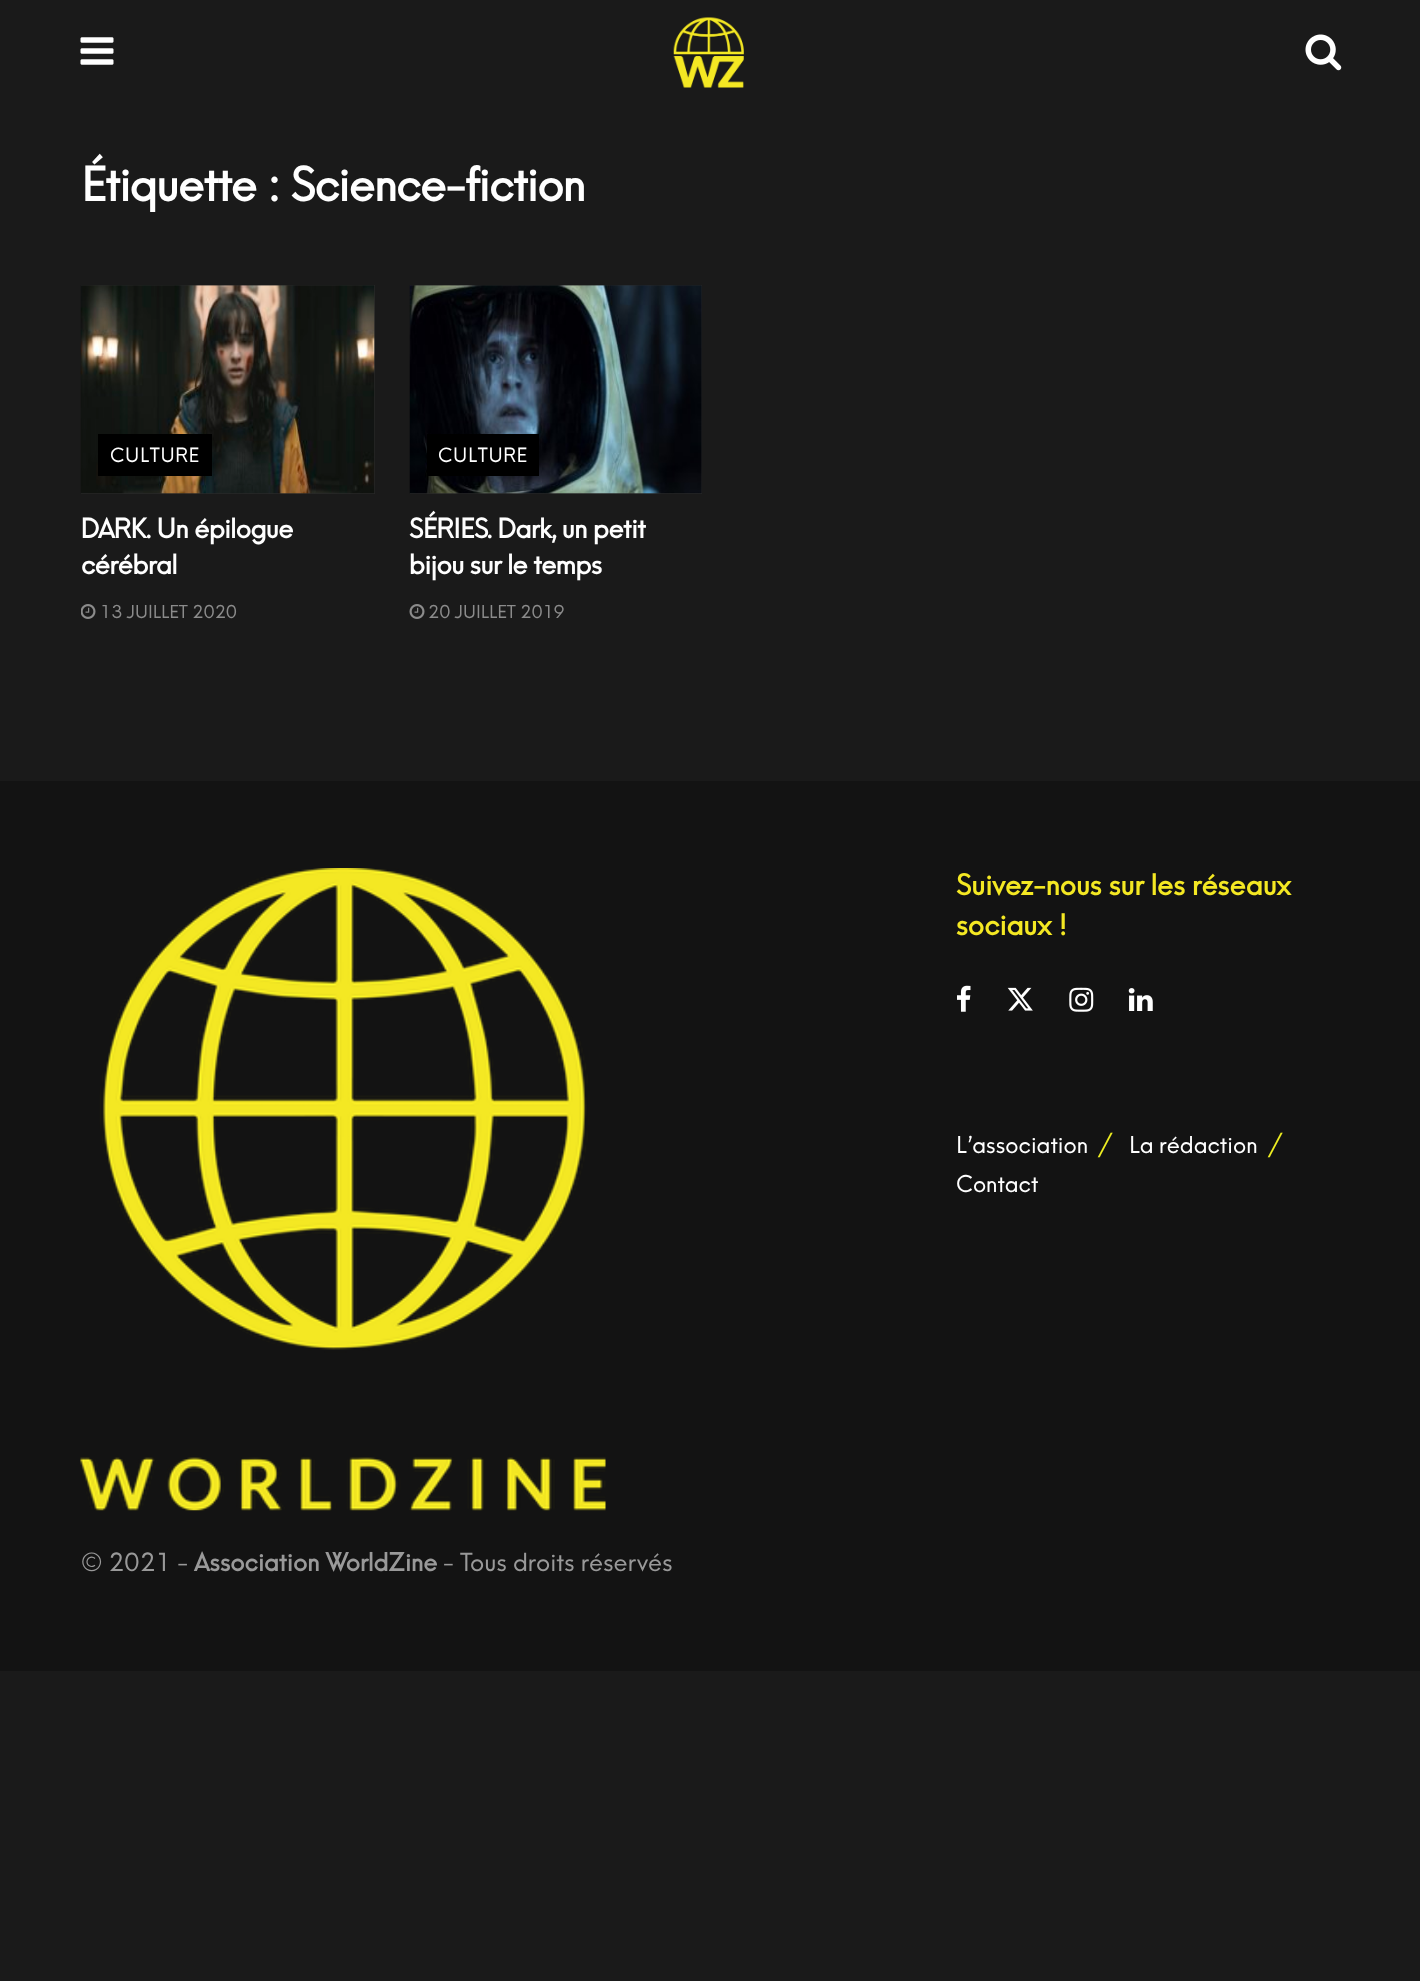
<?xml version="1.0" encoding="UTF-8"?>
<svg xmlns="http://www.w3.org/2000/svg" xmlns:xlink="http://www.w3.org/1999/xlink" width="1420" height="1981">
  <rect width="100%" height="100%" fill="#1a1a1a" />
  <image x="80" y="37" width="34" height="28" xlink:href="image1.png" />
  <image x="673" y="17" width="71" height="71" xlink:href="image2.png" />
  <image x="1305" y="34" width="37" height="37" xlink:href="image3.png" />
  <rect x="81" y="285" width="294" height="209" fill="#282828" />
  <image x="80" y="285" width="295" height="209" xlink:href="image4.png" />
  <rect x="98" y="434" width="114" height="42" fill="#000000" />
  <image x="81" y="604" width="15" height="15" xlink:href="image5.png" />
  <rect x="410" y="285" width="292" height="209" fill="#282828" />
  <image x="409" y="285" width="293" height="209" xlink:href="image6.png" />
  <rect x="427" y="434" width="112" height="42" fill="#000000" />
  <image x="409" y="604" width="16" height="15" xlink:href="image7.png" />
  <rect y="781" width="1420" height="890" fill="#131313" />
  <image x="80" y="868" width="526" height="643" xlink:href="image8.png" />
  <image x="957" y="985" width="14" height="27" xlink:href="image9.png" />
  <image x="1007" y="987" width="26" height="24" xlink:href="image10.png" />
  <image x="1069" y="987" width="25" height="25" xlink:href="image11.png" />
  <image x="1128" y="988" width="25" height="23" xlink:href="image12.png" />
  <text x="81" y="201" style="font-family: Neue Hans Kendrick; font-size: 45.5px; font-weight: bold; letter-spacing: -0.9px; fill: #ffffff">Étiquette : Science-fiction</text>
  <text x="110" y="462" style="font-family: Neue Hans Kendrick; font-size: 19.25px; letter-spacing: 0.75px; fill: #ffffff">CULTURE</text>
  <text x="81" y="538" style="font-family: Neue Hans Kendrick; font-size: 26.25px; font-weight: bold; letter-spacing: -0.5px; fill: #ffffff">DARK. Un épilogue</text>
  <text x="81" y="574" style="font-family: Neue Hans Kendrick; font-size: 26.25px; font-weight: bold; letter-spacing: -0.5px; fill: #ffffff">cérébral</text>
  <text x="100" y="618" style="font-family: Neue Hans Kendrick; font-size: 17.5px; fill: #8b8b8b">13 JUILLET 2020</text>
  <text x="438" y="462" style="font-family: Neue Hans Kendrick; font-size: 19.25px; letter-spacing: 0.75px; fill: #ffffff">CULTURE</text>
  <text x="409" y="538" style="font-family: Neue Hans Kendrick; font-size: 26.25px; font-weight: bold; letter-spacing: -0.5px; fill: #ffffff">SÉRIES. Dark, un petit</text>
  <text x="409" y="574" style="font-family: Neue Hans Kendrick; font-size: 26.25px; font-weight: bold; letter-spacing: -0.5px; fill: #ffffff">bijou sur le temps</text>
  <text x="428" y="618" style="font-family: Neue Hans Kendrick; font-size: 17.5px; fill: #8b8b8b">20 JUILLET 2019</text>
  <text x="956" y="895" style="font-family: Neue Hans Kendrick; font-size: 28px; font-weight: bold; fill: #f4e823">Suivez-nous sur les réseaux</text>
  <text x="956" y="935" style="font-family: Neue Hans Kendrick; font-size: 28px; font-weight: bold; fill: #f4e823">sociaux !</text>
  <text x="956" y="1153" style="font-family: Neue Hans Kendrick; font-size: 22.75px; fill: #ffffff">L’association</text>
  <text x="1098" y="1153" style="font-family: Neue Hans Kendrick; font-size: 24.5px; fill: #eeee22">/</text>
  <text x="1129" y="1153" style="font-family: Neue Hans Kendrick; font-size: 22.75px; fill: #ffffff">La rédaction</text>
  <text x="1268" y="1153" style="font-family: Neue Hans Kendrick; font-size: 24.5px; fill: #eeee22">/</text>
  <text x="956" y="1192" style="font-family: Neue Hans Kendrick; font-size: 22.75px; fill: #ffffff">Contact</text>
  <text x="81" y="1571" style="font-family: Neue Hans Kendrick; font-size: 24.5px; fill: #999999">© 2021 -</text>
  <text x="194" y="1571" style="font-family: Neue Hans Kendrick; font-size: 24.5px; font-weight: bold; fill: #999999">Association WorldZine</text>
  <text x="443" y="1571" style="font-family: Neue Hans Kendrick; font-size: 24.5px; fill: #999999">- Tous droits réservés</text>
</svg>
